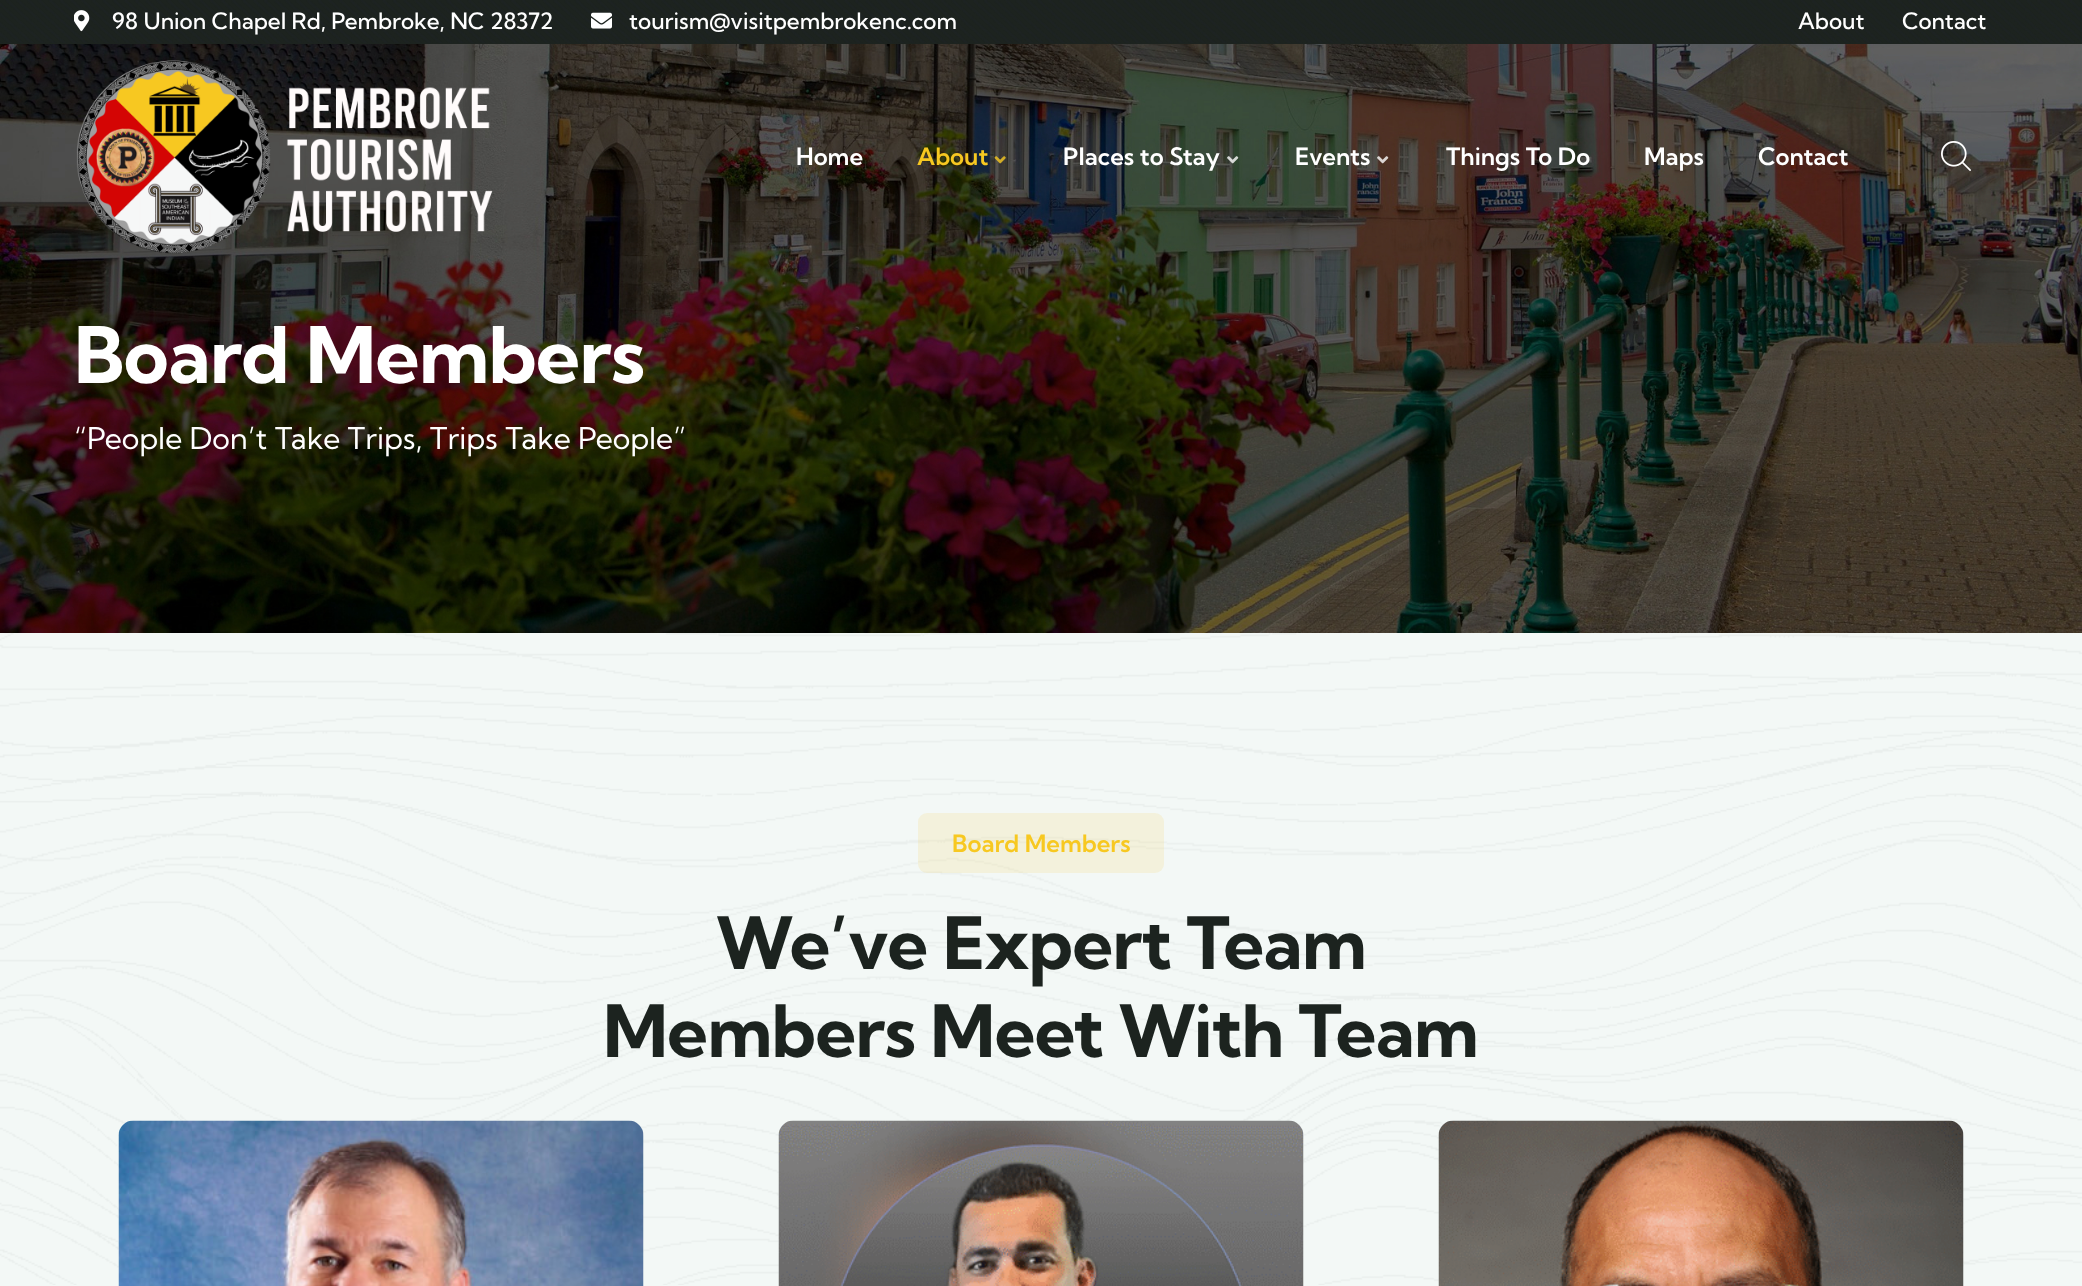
<?xml version="1.0" encoding="UTF-8"?>
<svg xmlns="http://www.w3.org/2000/svg" xmlns:xlink="http://www.w3.org/1999/xlink" width="2082" height="1286">
  <rect width="100%" height="100%" fill="#ffffff" />
  <rect width="2082" height="44" fill="#1d231f" />
  <image x="0" y="0" width="2082" height="43" xlink:href="image1.png" />
  <image x="74" y="10" width="16" height="22" xlink:href="image2.png" />
  <image x="591" y="12" width="21" height="17" xlink:href="image3.png" />
  <image x="0" y="44" width="2082" height="589" xlink:href="image9.png" />
  <image x="76" y="60" width="417" height="194" xlink:href="image4.png" />
  <image x="994" y="156" width="12" height="8" xlink:href="image5.png" />
  <image x="1227" y="156" width="12" height="8" xlink:href="image6.png" />
  <image x="1377" y="156" width="12" height="8" xlink:href="image7.png" />
  <rect x="1898" y="129" width="2" height="56" fill="#ffffff" fill-opacity="0.2" />
  <image x="1941" y="141" width="30" height="30" xlink:href="image8.png" />
  <rect y="633" width="2082" height="653" fill="#f3f8f6" />
  <image x="0" y="633" width="2082" height="652" xlink:href="image10.png" />
  <rect x="918" y="813" width="246" height="60" rx="9" fill="#f7c821" fill-opacity="0.12" />
  <image x="118" y="1120" width="526" height="166" xlink:href="image11.png" />
  <image x="778" y="1120" width="526" height="166" xlink:href="image12.png" />
  <image x="1438" y="1120" width="526" height="166" xlink:href="image13.png" />
  <text x="112" y="29" style="font-family: Kumbh Sans; font-size: 22.5px; font-weight: 500; fill: #ffffff">98 Union Chapel Rd, Pembroke, NC 28372</text>
  <text x="629" y="29" style="font-family: Kumbh Sans; font-size: 22.5px; font-weight: 500; fill: #ffffff">tourism@visitpembrokenc.com</text>
  <text x="1798" y="29" style="font-family: Kumbh Sans; font-size: 22.5px; font-weight: 500; fill: #ffffff">About</text>
  <text x="1902" y="29" style="font-family: Kumbh Sans; font-size: 22.5px; font-weight: 500; fill: #ffffff">Contact</text>
  <text x="796" y="165" style="font-family: Kumbh Sans; font-size: 24px; font-weight: 600; fill: #ffffff">Home</text>
  <text x="917" y="165" style="font-family: Kumbh Sans; font-size: 24px; font-weight: 600; fill: #f7c821">About</text>
  <text x="1063" y="165" style="font-family: Kumbh Sans; font-size: 24px; font-weight: 600; fill: #ffffff">Places to Stay</text>
  <text x="1295" y="165" style="font-family: Kumbh Sans; font-size: 24px; font-weight: 600; fill: #ffffff">Events</text>
  <text x="1446" y="165" style="font-family: Kumbh Sans; font-size: 24px; font-weight: 600; fill: #ffffff">Things To Do</text>
  <text x="1644" y="165" style="font-family: Kumbh Sans; font-size: 24px; font-weight: 600; fill: #ffffff">Maps</text>
  <text x="1758" y="165" style="font-family: Kumbh Sans; font-size: 24px; font-weight: 600; fill: #ffffff">Contact</text>
  <text x="74" y="383" style="font-family: Kumbh Sans; font-size: 78px; font-weight: bold; letter-spacing: -0.9px; fill: #ffffff">Board Members</text>
  <text x="74" y="449" style="font-family: Kumbh Sans; font-size: 30px; fill: #ffffff">“People Don’t Take Trips, Trips Take People”</text>
  <text x="952" y="852" style="font-family: Kumbh Sans; font-size: 24px; font-weight: 600; fill: #f7c821">Board Members</text>
  <text x="716" y="969" style="font-family: Kumbh Sans; font-size: 72px; font-weight: bold; letter-spacing: -0.9px; fill: #1c231f">We’ve Expert Team</text>
  <text x="603" y="1057" style="font-family: Kumbh Sans; font-size: 72px; font-weight: bold; letter-spacing: -0.9px; fill: #1c231f">Members Meet With Team</text>
</svg>
